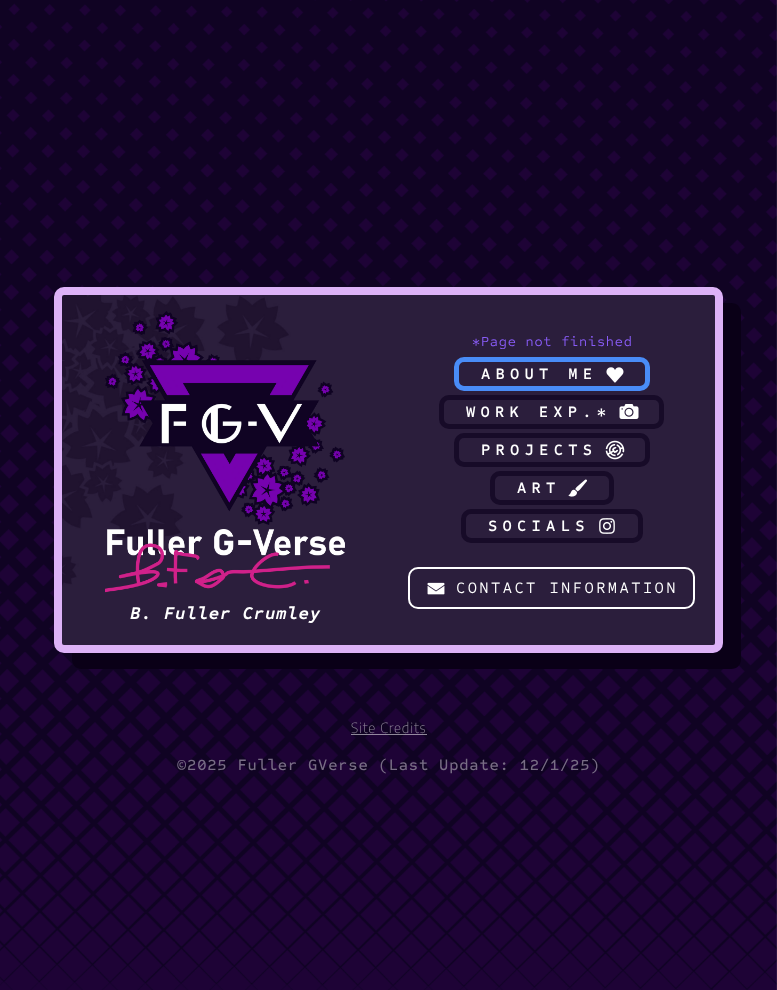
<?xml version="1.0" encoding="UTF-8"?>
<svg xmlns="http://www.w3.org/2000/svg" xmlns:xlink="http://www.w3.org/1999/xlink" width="777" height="990">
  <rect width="100%" height="100%" fill="#ffffff" />
  <image x="0" y="0" width="777" height="990" xlink:href="image1.png" />
  <path d="M 72 653 v 6 c 0 6 4 10 10 10 h 649 c 6 0 10 -4 10 -10 v -346 c 0 -6 -4 -10 -10 -10 h -8 v 340 c 0 6 -4 10 -10 10 z" fill="#0a0017" />
  <image x="54" y="295" width="669" height="350" xlink:href="image2.png" />
  <rect x="58" y="291" width="661" height="358" rx="6" fill="none" stroke="#ddb2f7" stroke-width="8" />
  <rect x="456.5" y="359.5" width="191" height="29" rx="7.5" fill="none" stroke="#498cf7" stroke-width="5" />
  <image x="606" y="367" width="18" height="16" xlink:href="image3.png" />
  <rect x="441.5" y="397.5" width="220" height="29" rx="7.5" fill="none" stroke="#170b28" stroke-width="5" />
  <image x="619" y="404" width="20" height="15" xlink:href="image4.png" />
  <rect x="456.5" y="435.5" width="191" height="29" rx="7.5" fill="none" stroke="#170b28" stroke-width="5" />
  <image x="605" y="440" width="20" height="20" xlink:href="image5.png" />
  <rect x="492.5" y="473.5" width="119" height="29" rx="7.5" fill="none" stroke="#170b28" stroke-width="5" />
  <image x="568" y="479" width="19" height="18" xlink:href="image6.png" />
  <rect x="463.5" y="511.5" width="177" height="29" rx="7.5" fill="none" stroke="#170b28" stroke-width="5" />
  <image x="599" y="518" width="16" height="16" xlink:href="image7.png" />
  <rect x="409" y="568" width="285" height="40" rx="9" fill="none" stroke="#ffffff" stroke-width="2" />
  <image x="427" y="582" width="18" height="13" xlink:href="image8.png" />
  <image x="105" y="311" width="240" height="214" xlink:href="image9.png" />
  <image x="105" y="529" width="240" height="64" xlink:href="image10.png" />
  <rect x="351" y="734" width="76" height="1" fill="#ffffff" fill-opacity="0.53" />
  <text x="472" y="346" style="font-family: Sometype Mono; font-size: 14px; letter-spacing: 0.8px; fill: #895cf7">*Page not finished</text>
  <text x="481" y="379" style="font-family: Sometype Mono; font-size: 16px; font-weight: 600; letter-spacing: 5.25px; fill: #ffffff">ABOUT ME</text>
  <text x="466" y="417" style="font-family: Sometype Mono; font-size: 16px; font-weight: 600; letter-spacing: 5.25px; fill: #ffffff">WORK EXP.*</text>
  <text x="481" y="455" style="font-family: Sometype Mono; font-size: 16px; font-weight: 600; letter-spacing: 5.25px; fill: #ffffff">PROJECTS</text>
  <text x="517" y="493" style="font-family: Sometype Mono; font-size: 16px; font-weight: 600; letter-spacing: 5.25px; fill: #ffffff">ART</text>
  <text x="488" y="531" style="font-family: Sometype Mono; font-size: 16px; font-weight: 600; letter-spacing: 5.25px; fill: #ffffff">SOCIALS</text>
  <text x="456" y="593" style="font-family: Sometype Mono; font-size: 16px; letter-spacing: 2.4px; fill: #ffffff">CONTACT INFORMATION</text>
  <text x="130" y="619" style="font-family: Sometype Mono; font-size: 18px; font-weight: bold; font-style: italic; letter-spacing: 0.8px; fill: #ffffff">B. Fuller Crumley</text>
  <text x="351" y="733" style="font-family: Encode Sans Condensed; font-size: 14px; font-weight: 200; letter-spacing: 0.8px; fill: #91899b">Site Credits</text>
  <text x="177" y="770" style="font-family: Sometype Mono; font-size: 16px; font-weight: 500; letter-spacing: 0.8px; fill: #786d85">©2025 Fuller GVerse (Last Update: 12/1/25)</text>
</svg>
